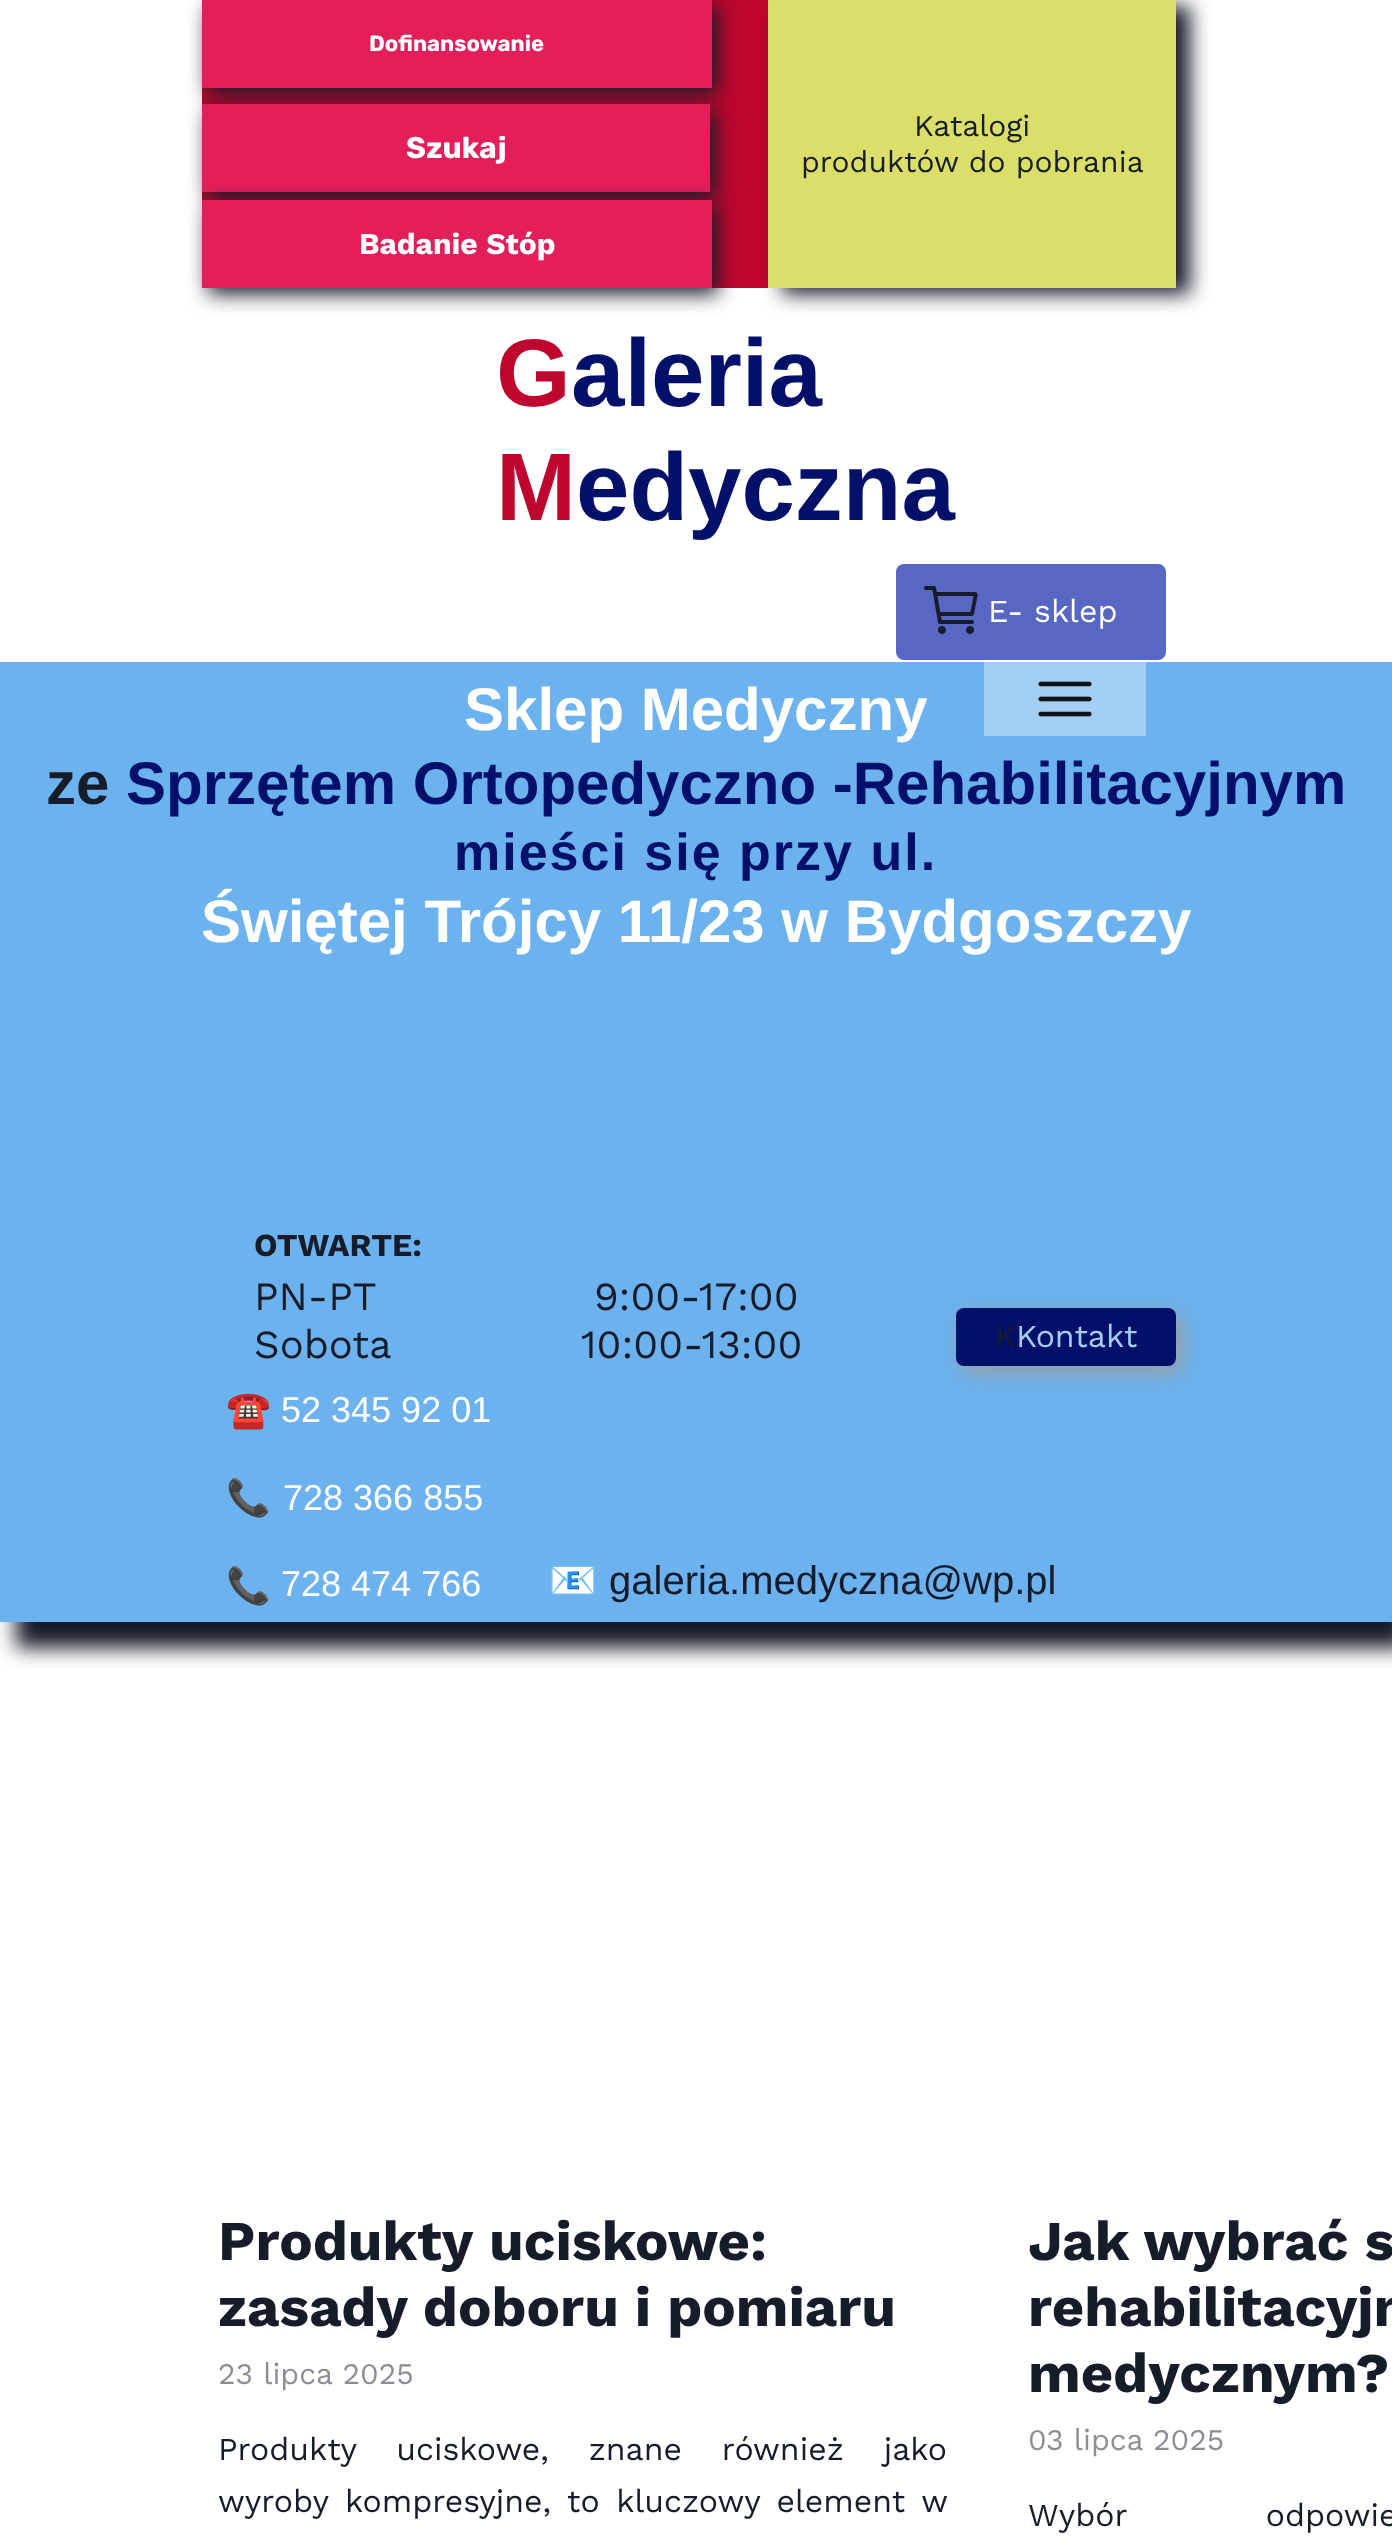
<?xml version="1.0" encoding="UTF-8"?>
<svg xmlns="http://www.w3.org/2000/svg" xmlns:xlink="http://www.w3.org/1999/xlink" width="1392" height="2545">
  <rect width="100%" height="100%" fill="#ffffff" />
  <rect x="202" width="566" height="288" fill="#bf062e" />
  <rect x="208" y="6" width="510" height="88" fill="#171c2b" filter="blur(10px)" />
  <rect x="202" width="510" height="88" fill="#e31e59" />
  <rect x="208" y="110" width="508" height="88" fill="#171c2b" filter="blur(10px)" />
  <rect x="202" y="104" width="508" height="88" fill="#e31e59" />
  <rect x="782" y="6" width="408" height="288" fill="#171c2b" filter="blur(10px)" />
  <rect x="768" width="408" height="288" fill="#dcde6a" />
  <rect x="208" y="206" width="510" height="88" fill="#171c2b" filter="blur(10px)" />
  <rect x="202" y="200" width="510" height="88" fill="#e31e59" />
  <rect x="896" y="564" width="270" height="96" rx="8" fill="#5767c2" />
  <image x="924" y="586" width="54" height="48" xlink:href="image1.png" />
  <rect x="16" y="688" width="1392" height="960" fill="#171c2b" filter="blur(10px)" />
  <rect y="662" width="1392" height="960" fill="#6bb2ef" />
  <rect x="984" y="662" width="162" height="74" fill="#a3cff5" />
  <image x="1038" y="681" width="54" height="36" xlink:href="image2.png" />
  <rect x="962" y="1314" width="220" height="58" rx="8" fill="#9c9c9c" filter="blur(10px)" />
  <rect x="956" y="1308" width="220" height="58" rx="8" fill="#021069" />
  <text x="369" y="51" style="font-family: Rubik; font-size: 22px; font-weight: bold; fill: #ffffff">Dofinansowanie</text>
  <text x="406" y="158" style="font-family: Rubik; font-size: 30px; font-weight: bold; fill: #ffffff">Szukaj</text>
  <text x="914" y="136" style="font-family: Work Sans; font-size: 30px; fill: #171c2b">Katalogi</text>
  <text x="801" y="172" style="font-family: Work Sans; font-size: 30px; fill: #171c2b">produktów do pobrania</text>
  <text x="359" y="254" style="font-family: Work Sans; font-size: 30px; font-weight: bold; fill: #ffffff">Badanie Stóp</text>
  <text x="496" y="406" style="font-family: Liberation Sans; font-size: 96px; font-weight: bold; fill: #bf062e">G</text>
  <text x="571" y="406" style="font-family: Liberation Sans; font-size: 96px; font-weight: bold; fill: #021069">aleria</text>
  <text x="496" y="520" style="font-family: Liberation Sans; font-size: 96px; font-weight: bold; fill: #bf062e">M</text>
  <text x="576" y="520" style="font-family: Liberation Sans; font-size: 96px; font-weight: bold; fill: #021069">edyczna</text>
  <text x="988" y="622" style="font-family: Work Sans; font-size: 32px; fill: #ffffff">E- sklep</text>
  <text x="464" y="730" style="font-family: Liberation Sans; font-size: 60px; font-weight: bold; fill: #ffffff">Sklep Medyczny</text>
  <text x="46" y="804" style="font-family: Liberation Sans; font-size: 60px; font-weight: bold; fill: #171c2b">ze</text>
  <text x="126" y="804" style="font-family: Liberation Sans; font-size: 60px; font-weight: bold; fill: #021069">Sprzętem Ortopedyczno -Rehabilitacyjnym</text>
  <text x="454" y="870" style="font-family: Liberation Sans; font-size: 52px; font-weight: bold; letter-spacing: 2px; fill: #021069">mieści się przy ul.</text>
  <text x="201" y="942" style="font-family: Liberation Sans; font-size: 60px; font-weight: bold; fill: #ffffff">Świętej Trójcy 11/23 w Bydgoszczy</text>
  <text x="254" y="1256" style="font-family: Work Sans; font-size: 32px; font-weight: bold; fill: #171c2b">OTWARTE:</text>
  <text x="254" y="1310" style="font-family: Work Sans; font-size: 40px; fill: #171c2b" xml:space="preserve">PN-PT                9:00-17:00</text>
  <text x="254" y="1358" style="font-family: Work Sans; font-size: 40px; fill: #171c2b" xml:space="preserve">Sobota              10:00-13:00</text>
  <text x="995" y="1347" style="font-family: Work Sans; font-size: 32px; fill: #171c2b">K</text>
  <text x="1016" y="1347" style="font-family: Work Sans; font-size: 32px; fill: #a3cff5">Kontakt</text>
  <text x="226" y="1422" style="font-family: Noto Color Emoji; font-size: 36px; fill: #171c2b">☎️</text>
  <text x="281" y="1422" style="font-family: Liberation Sans; font-size: 36px; fill: #ffffff">52 345 92 01</text>
  <text x="226" y="1510" style="font-family: Noto Color Emoji; font-size: 36px; fill: #171c2b">📞</text>
  <text x="283" y="1510" style="font-family: Liberation Sans; font-size: 36px; fill: #ffffff">728 366 855</text>
  <text x="226" y="1598" style="font-family: Noto Color Emoji; font-size: 36px; fill: #171c2b">📞</text>
  <text x="281" y="1596" style="font-family: Liberation Sans; font-size: 36px; fill: #ffffff">728 474 766</text>
  <text x="548" y="1594" style="font-family: Noto Color Emoji; font-size: 40px; fill: #171c2b">📧</text>
  <text x="609" y="1594" style="font-family: Liberation Sans; font-size: 40px; fill: #171c2b">galeria.medyczna@wp.pl</text>
  <text x="218" y="2260" word-spacing="1" style="font-family: Work Sans; font-size: 56px; font-weight: bold; fill: #171c2b">Produkty uciskowe:</text>
  <text x="218" y="2326" style="font-family: Work Sans; font-size: 56px; font-weight: bold; fill: #171c2b">zasady doboru i pomiaru</text>
  <text x="218" y="2384" style="font-family: Work Sans; font-size: 30px; fill: #8b8e95">23 lipca 2025</text>
  <text x="218" y="2460" word-spacing="29" style="font-family: Work Sans; font-size: 32px; fill: #171c2b">Produkty uciskowe, znane również jako</text>
  <text x="218" y="2512" word-spacing="5.75" style="font-family: Work Sans; font-size: 32px; fill: #171c2b">wyroby kompresyjne, to kluczowy element w</text>
  <text x="1028" y="2260" style="font-family: Work Sans; font-size: 56px; font-weight: bold; fill: #171c2b">Jak wybrać s</text>
  <text x="1028" y="2326" style="font-family: Work Sans; font-size: 56px; font-weight: bold; fill: #171c2b">rehabilitacyjn</text>
  <text x="1028" y="2392" style="font-family: Work Sans; font-size: 56px; font-weight: bold; fill: #171c2b">medycznym?</text>
  <text x="1028" y="2450" style="font-family: Work Sans; font-size: 30px; fill: #8b8e95">03 lipca 2025</text>
  <text x="1028" y="2526" word-spacing="128" style="font-family: Work Sans; font-size: 32px; fill: #171c2b">Wybór odpowie</text>
</svg>
